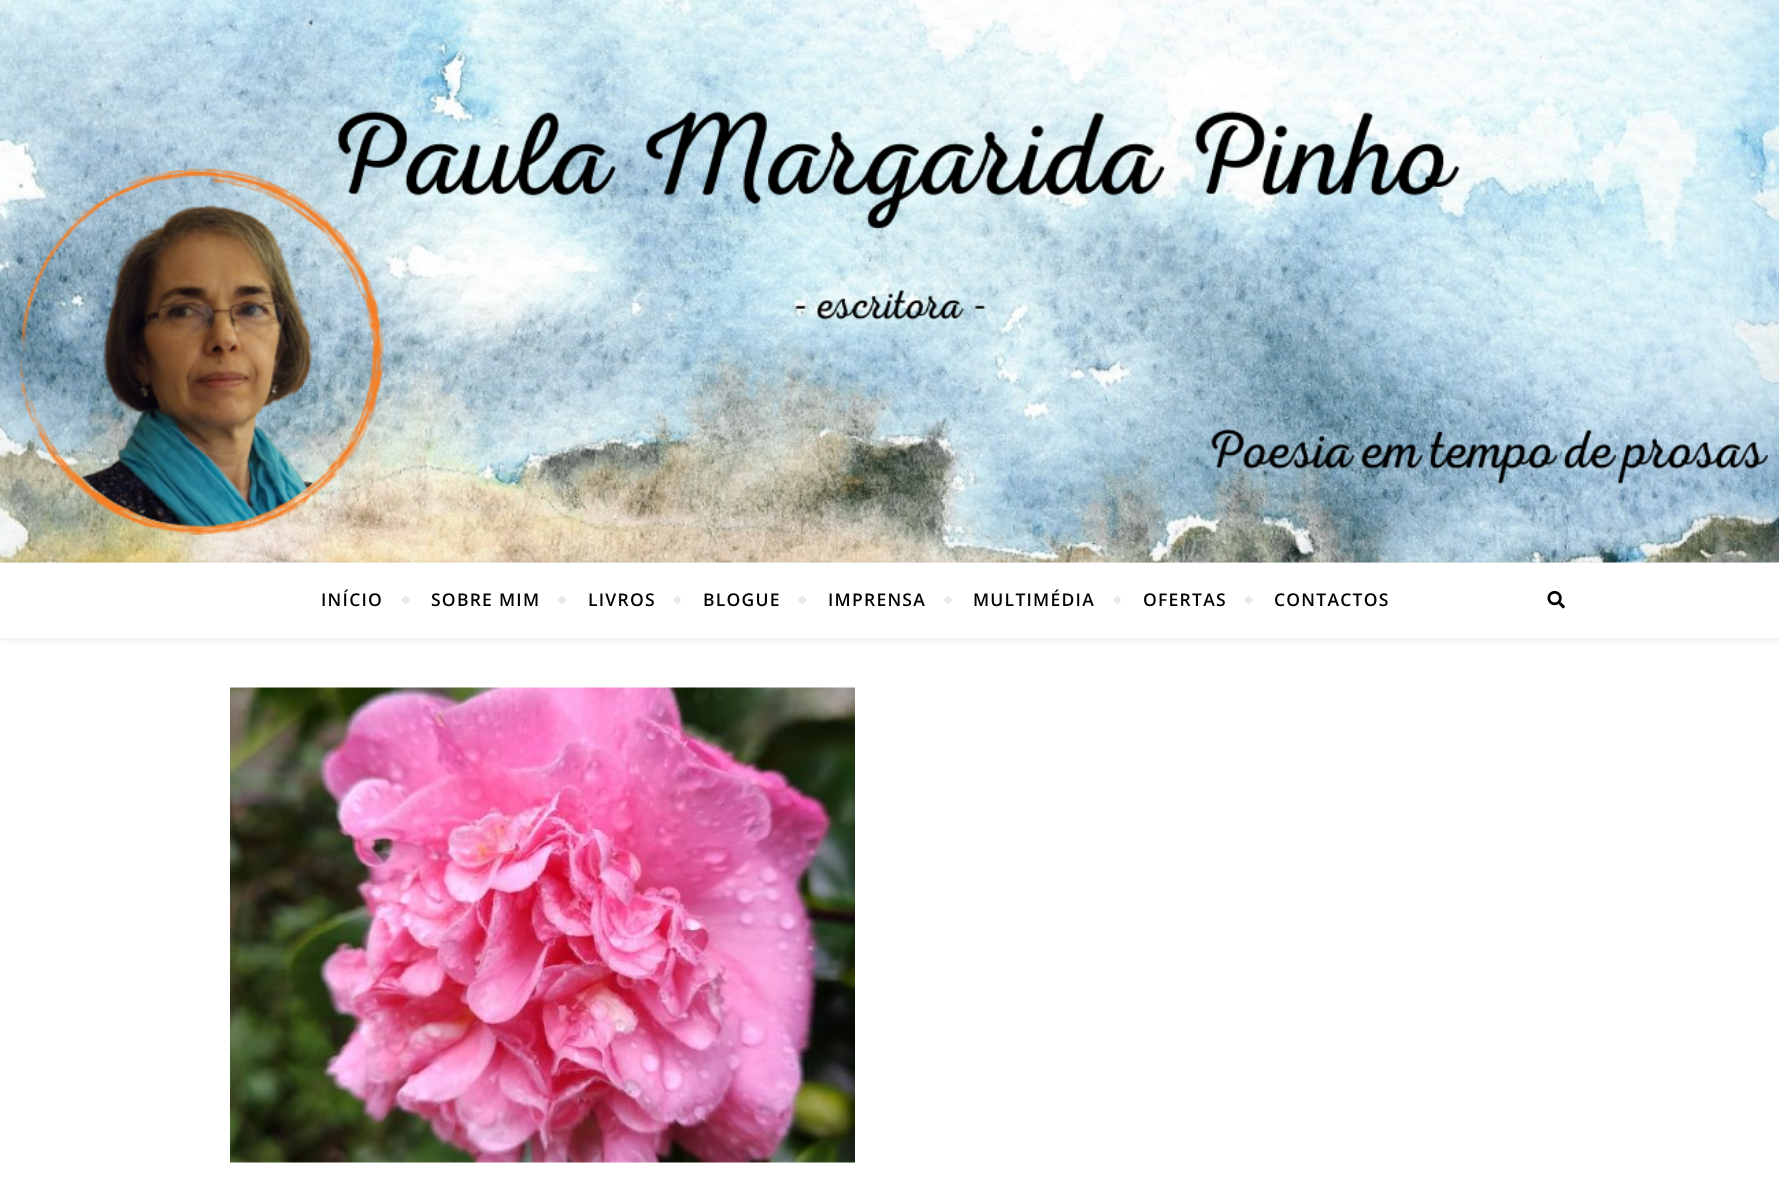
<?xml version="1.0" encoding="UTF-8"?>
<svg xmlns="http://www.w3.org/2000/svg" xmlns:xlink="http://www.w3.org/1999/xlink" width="1779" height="1202">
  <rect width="100%" height="100%" fill="#ffffff" />
  <image x="0" y="0" width="1779" height="563" xlink:href="image1.png" />
  <rect y="564" width="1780" height="75" fill="#000000" fill-opacity="0.1" filter="blur(3px)" />
  <rect y="563" width="1779" height="75" fill="#ffffff" />
  <path d="M 401 600 l 4.5 -4.5 l 4.5 4.5 l -4.5 4.5 z" fill="#e8e8e8" />
  <path d="M 557.5 600 l 4.5 -4.5 l 4.5 4.5 l -4.5 4.5 z" fill="#e8e8e8" />
  <path d="M 673 600 l 4.5 -4.5 l 4 4.5 l -4 4.5 z" fill="#e8e8e8" />
  <path d="M 798 600 l 4.5 -4.5 l 4.5 4.5 l -4.5 4.5 z" fill="#e8e8e8" />
  <path d="M 943.5 600 l 4.5 -4.5 l 4.5 4.5 l -4.5 4.5 z" fill="#e8e8e8" />
  <path d="M 1113 600 l 4.5 -4.5 l 4 4.5 l -4 4.5 z" fill="#e8e8e8" />
  <path d="M 1244 600 l 4.5 -4.5 l 4.5 4.5 l -4.5 4.5 z" fill="#e8e8e8" />
  <image x="1547" y="590" width="18" height="19" xlink:href="image2.png" />
  <image x="230" y="687" width="625" height="476" xlink:href="image3.png" />
  <text x="321" y="606" style="font-family: Open Sans; font-size: 17.5px; font-weight: 600; letter-spacing: 1.25px; fill: #000000">INÍCIO</text>
  <text x="431" y="606" style="font-family: Open Sans; font-size: 17.5px; font-weight: 600; letter-spacing: 1.25px; fill: #000000">SOBRE MIM</text>
  <text x="588" y="606" style="font-family: Open Sans; font-size: 17.5px; font-weight: 600; letter-spacing: 1.25px; fill: #000000">LIVROS</text>
  <text x="703" y="606" style="font-family: Open Sans; font-size: 17.5px; font-weight: 600; letter-spacing: 1.25px; fill: #000000">BLOGUE</text>
  <text x="828" y="606" style="font-family: Open Sans; font-size: 17.5px; font-weight: 600; letter-spacing: 1.25px; fill: #000000">IMPRENSA</text>
  <text x="973" y="606" style="font-family: Open Sans; font-size: 17.5px; font-weight: 600; letter-spacing: 1.25px; fill: #000000">MULTIMÉDIA</text>
  <text x="1143" y="606" style="font-family: Open Sans; font-size: 17.5px; font-weight: 600; letter-spacing: 1.25px; fill: #000000">OFERTAS</text>
  <text x="1274" y="606" style="font-family: Open Sans; font-size: 17.5px; font-weight: 600; letter-spacing: 1.25px; fill: #000000">CONTACTOS</text>
</svg>
